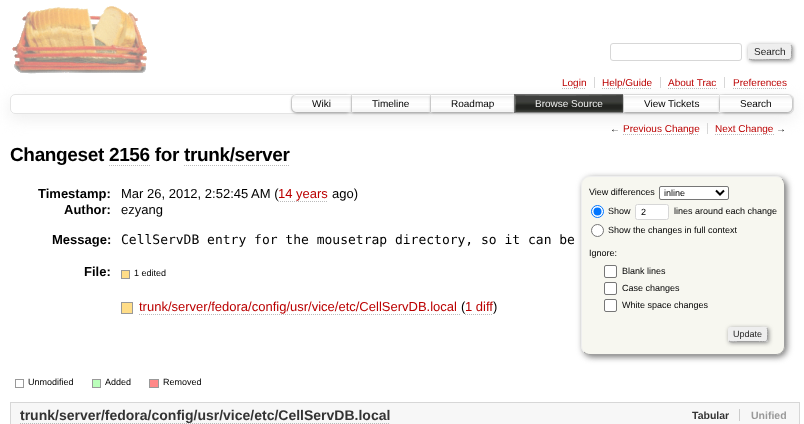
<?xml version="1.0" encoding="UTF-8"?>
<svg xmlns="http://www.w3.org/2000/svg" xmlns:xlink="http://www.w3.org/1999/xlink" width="804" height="424">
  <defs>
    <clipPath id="clip1"><path d="M 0 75 h 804 v 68 h -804 z m 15 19 h 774 c 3 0 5 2 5 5 v 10 c 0 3 -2 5 -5 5 h -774 c -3 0 -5 -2 -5 -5 v -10 c 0 -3 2 -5 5 -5 z" clip-rule="evenodd" /></clipPath>
    <clipPath id="clip2"><path d="M 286 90 h 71 v 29 h -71 z m 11 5 h 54 v 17 h -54 c -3 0 -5 -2 -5 -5 v -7 c 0 -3 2 -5 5 -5 z" clip-rule="evenodd" /></clipPath>
    <clipPath id="clip3"><path d="M 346 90 h 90 v 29 h -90 z m 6 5 h 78 v 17 h -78 z" clip-rule="evenodd" /></clipPath>
    <clipPath id="clip4"><path d="M 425 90 h 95 v 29 h -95 z m 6 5 h 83 v 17 h -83 z" clip-rule="evenodd" /></clipPath>
    <clipPath id="clip5"><path d="M 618 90 h 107 v 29 h -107 z m 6 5 h 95 v 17 h -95 z" clip-rule="evenodd" /></clipPath>
    <clipPath id="clip6"><path d="M 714 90 h 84 v 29 h -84 z m 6 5 h 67 c 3 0 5 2 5 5 v 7 c 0 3 -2 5 -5 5 h -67 z" clip-rule="evenodd" /></clipPath>
  </defs>
  <rect width="100%" height="100%" fill="#ffffff" />
  <image x="12" y="6" width="135" height="68" xlink:href="image1.png" />
  <rect x="610.5" y="43.5" width="131" height="17" rx="2.5" fill="none" stroke="#d7d7d7" />
  <rect x="749" y="45" width="44" height="16" rx="3" fill="#888888" filter="blur(2px)" />
  <rect x="748" y="44" width="44" height="16" rx="3" fill="#eeeeee" />
  <path d="M 791 45 c 1.5 2 0.5 5 0.5 7 c 0 8.5 0.5 7.5 -9 7.5 h -12.5 c -3 0 -19 1 -21 -0.5" fill="none" stroke="#9f9f9f" />
  <path d="M 749 59 c -1.5 -2 -0.5 -5 -0.5 -7 c 0 -8.5 -0.5 -7.5 9 -7.5 h 12.5 c 3 0 19 -1 21 0.5" fill="none" stroke="#eeeeee" />
  <g clip-path="url(#clip1)">
    <rect x="10" y="99" width="784" height="20" rx="5" fill="#eeeeee" filter="blur(7.5px)" />
  </g>
  <rect x="594" y="77" width="1" height="11" fill="#d7d7d7" />
  <path d="M 562 88.5 h 24" fill="none" stroke="#bbbbbb" stroke-dasharray="1 1" />
  <rect x="660" y="77" width="1" height="11" fill="#d7d7d7" />
  <path d="M 602 88.5 h 50" fill="none" stroke="#bbbbbb" stroke-dasharray="1 1" />
  <rect x="724" y="77" width="1" height="11" fill="#d7d7d7" />
  <path d="M 668 88.5 h 49" fill="none" stroke="#bbbbbb" stroke-dasharray="1 1" />
  <path d="M 733 88.5 h 54" fill="none" stroke="#bbbbbb" stroke-dasharray="1 1" />
  <rect x="10.5" y="94.5" width="783" height="19" rx="4.5" fill="none" stroke="#e4e4e4" />
  <path d="M 296 94 h 56 v 19 h -56 c -3 0 -5 -2 -5 -5 v -9 c 0 -3 2 -5 5 -5 z" fill="#ffffff" />
  <image x="291" y="96" width="60" height="17" xlink:href="image2.png" />
  <path d="M 296 94.5 h 55.5 v 18 h -55.5 c -2.5 0 -4.5 -2 -4.5 -4.5 v -9 c 0 -2.5 2 -4.5 4.5 -4.5 z" fill="none" stroke="#e4e4e4" />
  <g clip-path="url(#clip2)">
    <rect x="292" y="96" width="59" height="17" rx="5" fill="#999999" filter="blur(1.5px)" />
  </g>
  <rect x="352" y="97" width="2" height="15" fill="#ffffff" />
  <image x="352" y="96" width="78" height="16" xlink:href="image3.png" />
  <rect x="351.5" y="94.5" width="79" height="18" fill="none" stroke="#e4e4e4" />
  <g clip-path="url(#clip3)">
    <rect x="352" y="96" width="78" height="17" fill="#999999" filter="blur(1.5px)" />
  </g>
  <rect x="431" y="95" width="2" height="17" fill="#ffffff" />
  <image x="431" y="96" width="83" height="16" xlink:href="image4.png" />
  <rect x="430.5" y="94.5" width="84" height="18" fill="none" stroke="#e4e4e4" />
  <g clip-path="url(#clip4)">
    <rect x="431" y="96" width="83" height="17" fill="#999999" filter="blur(1.5px)" />
  </g>
  <rect x="514.5" y="94.5" width="109" height="18" fill="none" stroke="#666666" />
  <rect x="515" y="96" width="108" height="17" fill="#999999" filter="blur(1.5px)" />
  <rect x="515" y="95" width="108" height="17" fill="#000000" />
  <image x="515" y="95" width="108" height="17" xlink:href="image5.png" />
  <rect x="624" y="95" width="2" height="17" fill="#ffffff" />
  <image x="624" y="96" width="95" height="16" xlink:href="image6.png" />
  <rect x="623.5" y="94.5" width="96" height="18" fill="none" stroke="#e4e4e4" />
  <g clip-path="url(#clip5)">
    <rect x="624" y="96" width="95" height="17" fill="#999999" filter="blur(1.5px)" />
  </g>
  <path d="M 719 94 h 69 c 3 0 5 2 5 5 v 9 c 0 3 -2 5 -5 5 h -69 z" fill="#ffffff" />
  <image x="720" y="96" width="73" height="17" xlink:href="image7.png" />
  <path d="M 719.5 94.5 h 68.5 c 2.5 0 4.5 2 4.5 4.5 v 9 c 0 2.5 -2 4.5 -4.5 4.5 h -68.5 z" fill="none" stroke="#e4e4e4" />
  <g clip-path="url(#clip6)">
    <rect x="720" y="96" width="72" height="17" rx="5" fill="#999999" filter="blur(1.5px)" />
  </g>
  <rect x="707" y="123" width="1" height="11" fill="#d7d7d7" />
  <path d="M 623 134.5 h 76" fill="none" stroke="#bbbbbb" stroke-dasharray="1 1" />
  <path d="M 715 134.5 h 59" fill="none" stroke="#bbbbbb" stroke-dasharray="1 1" />
  <path d="M 109 165.5 h 41" fill="none" stroke="#bbbbbb" stroke-dasharray="1 1" />
  <path d="M 184 165.5 h 106" fill="none" stroke="#bbbbbb" stroke-dasharray="1 1" />
  <path d="M 278 201.5 h 50" fill="none" stroke="#bbbbbb" stroke-dasharray="1 1" />
  <rect x="121.5" y="270.5" width="8" height="8" fill="#ffdd88" stroke="#999999" />
  <rect x="121.5" y="302.5" width="11" height="11" fill="#ffdd88" stroke="#999999" />
  <path d="M 139 314.5 h 322" fill="none" stroke="#bbbbbb" stroke-dasharray="1 1" />
  <path d="M 465 314.5 h 28" fill="none" stroke="#bbbbbb" stroke-dasharray="1 1" />
  <rect x="583" y="178" width="204" height="179" rx="9" fill="#777777" filter="blur(3px)" />
  <rect x="581" y="176" width="204" height="179" rx="9" fill="#f7f7f0" />
  <path d="M 782 179 c 1.5 1.5 2.5 3.5 2.5 6 v 161 c 0 2.5 -1 4.5 -2.5 6 c -1.5 1.5 -3.5 2.5 -6 2.5 h -186 c -2.5 0 -4.5 -1 -6 -2.5" fill="none" stroke="#9f9f9f" />
  <path d="M 584 352 c -1.5 -1.5 -2.5 -3.5 -2.5 -6 v -161 c 0 -2.5 1 -4.5 2.5 -6 c 1.5 -1.5 3.5 -2.5 6 -2.5 h 186 c 2.5 0 4.5 1 6 2.5" fill="none" stroke="#eeeeee" />
  <rect x="659.5" y="186.5" width="69" height="13" rx="1.5" fill="#ffffff" stroke="#767676" />
  <path d="M 716 190.5 l 4 4 l 4 -4" fill="none" stroke="#000000" stroke-width="2" />
  <circle cx="597.5" cy="211.5" r="6" fill="#ffffff" stroke="#0075ff" />
  <circle cx="597.5" cy="211.5" r="4" fill="#0075ff" />
  <rect x="635.5" y="204.5" width="33" height="15" rx="2" fill="#ffffff" stroke="#d7d7d7" />
  <circle cx="597.5" cy="230.5" r="6" fill="#ffffff" stroke="#767676" />
  <rect x="604.5" y="265.5" width="12" height="12" rx="1.5" fill="#ffffff" stroke="#767676" />
  <rect x="604.5" y="282.5" width="12" height="12" rx="1.5" fill="#ffffff" stroke="#767676" />
  <rect x="604.5" y="299.5" width="12" height="12" rx="1.5" fill="#ffffff" stroke="#767676" />
  <rect x="729" y="328" width="40" height="15" rx="2.5" fill="#888888" filter="blur(2px)" />
  <rect x="728" y="327" width="40" height="15" rx="2.5" fill="#eeeeee" />
  <path d="M 767 328 c 1 1.5 0.5 5 0.5 6.5 c 0 8 0.5 7 -8 7 h -23 c -0.5 0 -6 1 -7.5 -0.5" fill="none" stroke="#9f9f9f" />
  <path d="M 729 341 c -1 -1.5 -0.5 -5 -0.5 -6.5 c 0 -8 -0.5 -7 8 -7 h 23 c 0.5 0 6 -1 7.5 0.5" fill="none" stroke="#eeeeee" />
  <rect x="15.5" y="379.5" width="8" height="8" fill="none" stroke="#999999" />
  <rect x="92.5" y="379.5" width="8" height="8" fill="#bbffbb" stroke="#999999" />
  <rect x="149.5" y="379.5" width="9" height="8" fill="#ff8888" stroke="#999999" />
  <rect x="10.5" y="402.5" width="789" height="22" fill="#f7f7f7" stroke="#d7d7d7" />
  <path d="M 20 423.5 h 370" fill="none" stroke="#bbbbbb" stroke-dasharray="1 1" />
  <rect x="739" y="409" width="1" height="12" fill="#cccccc" />
  <text x="754" y="55" style="font-family: Liberation Sans; font-size: 10px; fill: #222222">Search</text>
  <text x="562" y="86" style="font-family: Liberation Sans; font-size: 10px; fill: #bb0000">Login</text>
  <text x="602" y="86" style="font-family: Liberation Sans; font-size: 10px; fill: #bb0000">Help/Guide</text>
  <text x="668" y="86" style="font-family: Liberation Sans; font-size: 10px; fill: #bb0000">About Trac</text>
  <text x="733" y="86" style="font-family: Liberation Sans; font-size: 10px; fill: #bb0000">Preferences</text>
  <text x="312" y="107" style="font-family: Liberation Sans; font-size: 10px; fill: #000000">Wiki</text>
  <text x="372" y="107" style="font-family: Liberation Sans; font-size: 10px; fill: #000000">Timeline</text>
  <text x="451" y="107" style="font-family: Liberation Sans; font-size: 10px; fill: #000000">Roadmap</text>
  <text x="535" y="107" style="font-family: Liberation Sans; font-size: 10px; fill: #eeeeee">Browse Source</text>
  <text x="644" y="107" style="font-family: Liberation Sans; font-size: 10px; fill: #000000">View Tickets</text>
  <text x="740" y="107" style="font-family: Liberation Sans; font-size: 10px; fill: #000000">Search</text>
  <text x="610" y="132" style="font-family: Liberation Sans; font-size: 10px; fill: #000000">←</text>
  <text x="623" y="132" style="font-family: Liberation Sans; font-size: 10px; fill: #bb0000">Previous Change</text>
  <text x="715" y="132" style="font-family: Liberation Sans; font-size: 10px; fill: #bb0000">Next Change</text>
  <text x="776" y="132" style="font-family: Liberation Sans; font-size: 10px; fill: #000000">→</text>
  <text x="10" y="161" style="font-family: Liberation Sans; font-size: 19px; font-weight: bold; letter-spacing: -0.35px; fill: #000000">Changeset 2156 for trunk/server</text>
  <text x="38" y="198" style="font-family: Liberation Sans; font-size: 13px; font-weight: bold; fill: #000000">Timestamp:</text>
  <text x="121" y="198" style="font-family: Liberation Sans; font-size: 13px; fill: #000000">Mar 26, 2012, 2:52:45 AM (</text>
  <text x="278" y="198" style="font-family: Liberation Sans; font-size: 13px; fill: #bb0000">14 years</text>
  <text x="332" y="198" style="font-family: Liberation Sans; font-size: 13px; fill: #000000">ago)</text>
  <text x="64" y="214" style="font-family: Liberation Sans; font-size: 13px; font-weight: bold; fill: #000000">Author:</text>
  <text x="121" y="214" style="font-family: Liberation Sans; font-size: 13px; fill: #000000">ezyang</text>
  <text x="52" y="244" style="font-family: Liberation Sans; font-size: 13px; font-weight: bold; fill: #000000">Message:</text>
  <text x="121" y="244" style="font-family: DejaVu Sans Mono; font-size: 13px; fill: #000000">CellServDB entry for the mousetrap directory, so it can be</text>
  <text x="84" y="276" style="font-family: Liberation Sans; font-size: 13px; font-weight: bold; fill: #000000">File:</text>
  <text x="134" y="276" style="font-family: Liberation Sans; font-size: 9px; fill: #000000">1 edited</text>
  <text x="139" y="311" style="font-family: Liberation Sans; font-size: 13px; fill: #bb0000">trunk/server/fedora/config/usr/vice/etc/CellServDB.local</text>
  <text x="461" y="311" style="font-family: Liberation Sans; font-size: 13px; fill: #000000">(</text>
  <text x="465" y="311" style="font-family: Liberation Sans; font-size: 13px; fill: #bb0000">1 diff</text>
  <text x="493" y="311" style="font-family: Liberation Sans; font-size: 13px; fill: #000000">)</text>
  <text x="589" y="195" style="font-family: Liberation Sans; font-size: 9px; fill: #000000">View differences</text>
  <text x="664" y="196" style="font-family: Liberation Sans; font-size: 9px; fill: #000000">inline</text>
  <text x="608" y="214" style="font-family: Liberation Sans; font-size: 9px; fill: #000000">Show</text>
  <text x="641" y="215" style="font-family: Liberation Sans; font-size: 9px; fill: #000000">2</text>
  <text x="674" y="214" style="font-family: Liberation Sans; font-size: 9px; fill: #000000">lines around each change</text>
  <text x="608" y="233" style="font-family: Liberation Sans; font-size: 9px; fill: #000000">Show the changes in full context</text>
  <text x="589" y="256" style="font-family: Liberation Sans; font-size: 9px; fill: #000000">Ignore:</text>
  <text x="622" y="274" style="font-family: Liberation Sans; font-size: 9px; fill: #000000">Blank lines</text>
  <text x="622" y="291" style="font-family: Liberation Sans; font-size: 9px; fill: #000000">Case changes</text>
  <text x="622" y="308" style="font-family: Liberation Sans; font-size: 9px; fill: #000000">White space changes</text>
  <text x="733" y="337" style="font-family: Liberation Sans; font-size: 9px; fill: #222222">Update</text>
  <text x="28" y="385" style="font-family: Liberation Sans; font-size: 9px; fill: #000000">Unmodified</text>
  <text x="105" y="385" style="font-family: Liberation Sans; font-size: 9px; fill: #000000">Added</text>
  <text x="163" y="385" style="font-family: Liberation Sans; font-size: 9px; fill: #000000">Removed</text>
  <text x="20" y="420" style="font-family: Liberation Sans; font-size: 14px; font-weight: bold; fill: #333333">trunk/server/fedora/config/usr/vice/etc/CellServDB.local</text>
  <text x="692" y="419" style="font-family: Liberation Sans; font-size: 10.5px; font-weight: bold; fill: #333333">Tabular</text>
  <text x="751" y="419" style="font-family: Liberation Sans; font-size: 10.5px; font-weight: bold; fill: #999999">Unified</text>
</svg>
